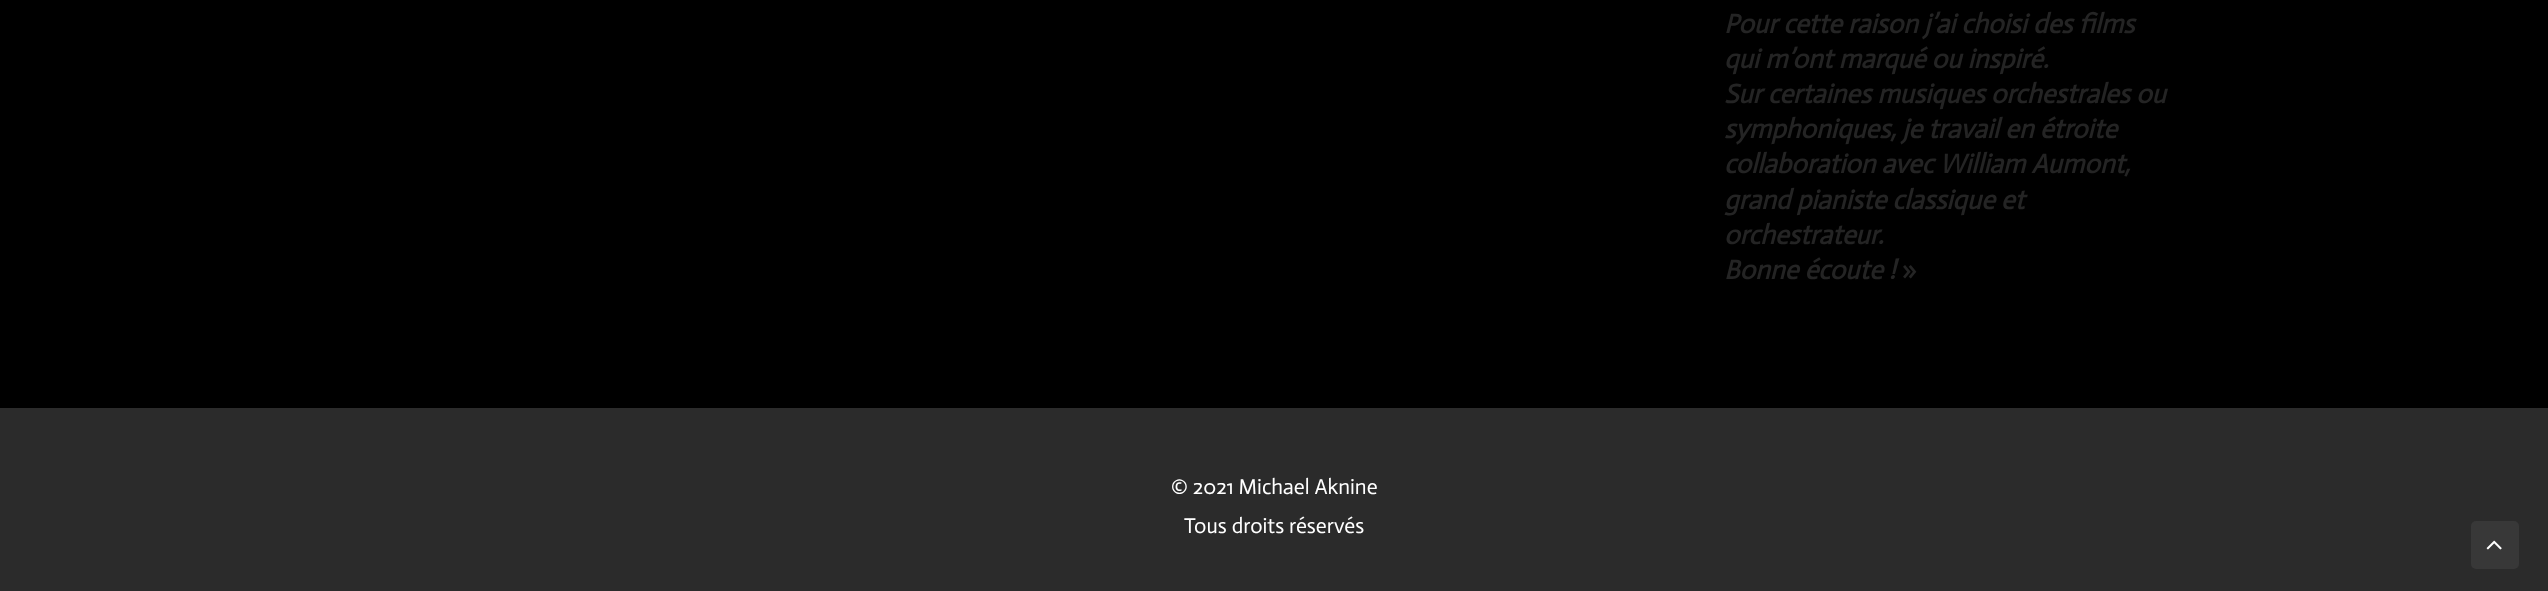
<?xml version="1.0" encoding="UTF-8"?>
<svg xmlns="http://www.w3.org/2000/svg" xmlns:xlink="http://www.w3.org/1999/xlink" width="2548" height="591">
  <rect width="100%" height="100%" fill="#000000" />
  <rect y="408" width="2548" height="183" fill="#2b2b2b" />
  <rect x="2471" y="521" width="48" height="48" rx="5" fill="#383838" />
  <image x="2486" y="540" width="16" height="10" xlink:href="image1.png" />
  <text x="1724" y="33" style="font-family: Actor; font-size: 27px; font-weight: bold; font-style: italic; fill: #242424">Pour cette raison j’ai choisi des films</text>
  <text x="1724" y="68" style="font-family: Actor; font-size: 27px; font-weight: bold; font-style: italic; fill: #242424">qui m’ont marqué ou inspiré.</text>
  <text x="1724" y="103" style="font-family: Actor; font-size: 27px; font-weight: bold; font-style: italic; fill: #242424">Sur certaines musiques orchestrales ou</text>
  <text x="1724" y="138" style="font-family: Actor; font-size: 27px; font-weight: bold; font-style: italic; fill: #242424">symphoniques, je travail en étroite</text>
  <text x="1724" y="173" style="font-family: Actor; font-size: 27px; font-weight: bold; font-style: italic; fill: #242424">collaboration avec William Aumont,</text>
  <text x="1724" y="209" style="font-family: Actor; font-size: 27px; font-weight: bold; font-style: italic; fill: #242424">grand pianiste classique et</text>
  <text x="1724" y="244" style="font-family: Actor; font-size: 27px; font-weight: bold; font-style: italic; fill: #242424">orchestrateur.</text>
  <text x="1724" y="279" style="font-family: Actor; font-size: 27px; font-weight: bold; font-style: italic; fill: #242424">Bonne écoute !</text>
  <text x="1902" y="279" style="font-family: Actor; font-size: 27px; font-weight: bold; fill: #242424">»</text>
  <text x="1171" y="494" style="font-family: Actor; font-size: 21.5px; fill: #ffffff">© 2021 Michael Aknine</text>
  <text x="1184" y="533" style="font-family: Actor; font-size: 21.5px; fill: #ffffff">Tous droits réservés</text>
</svg>
